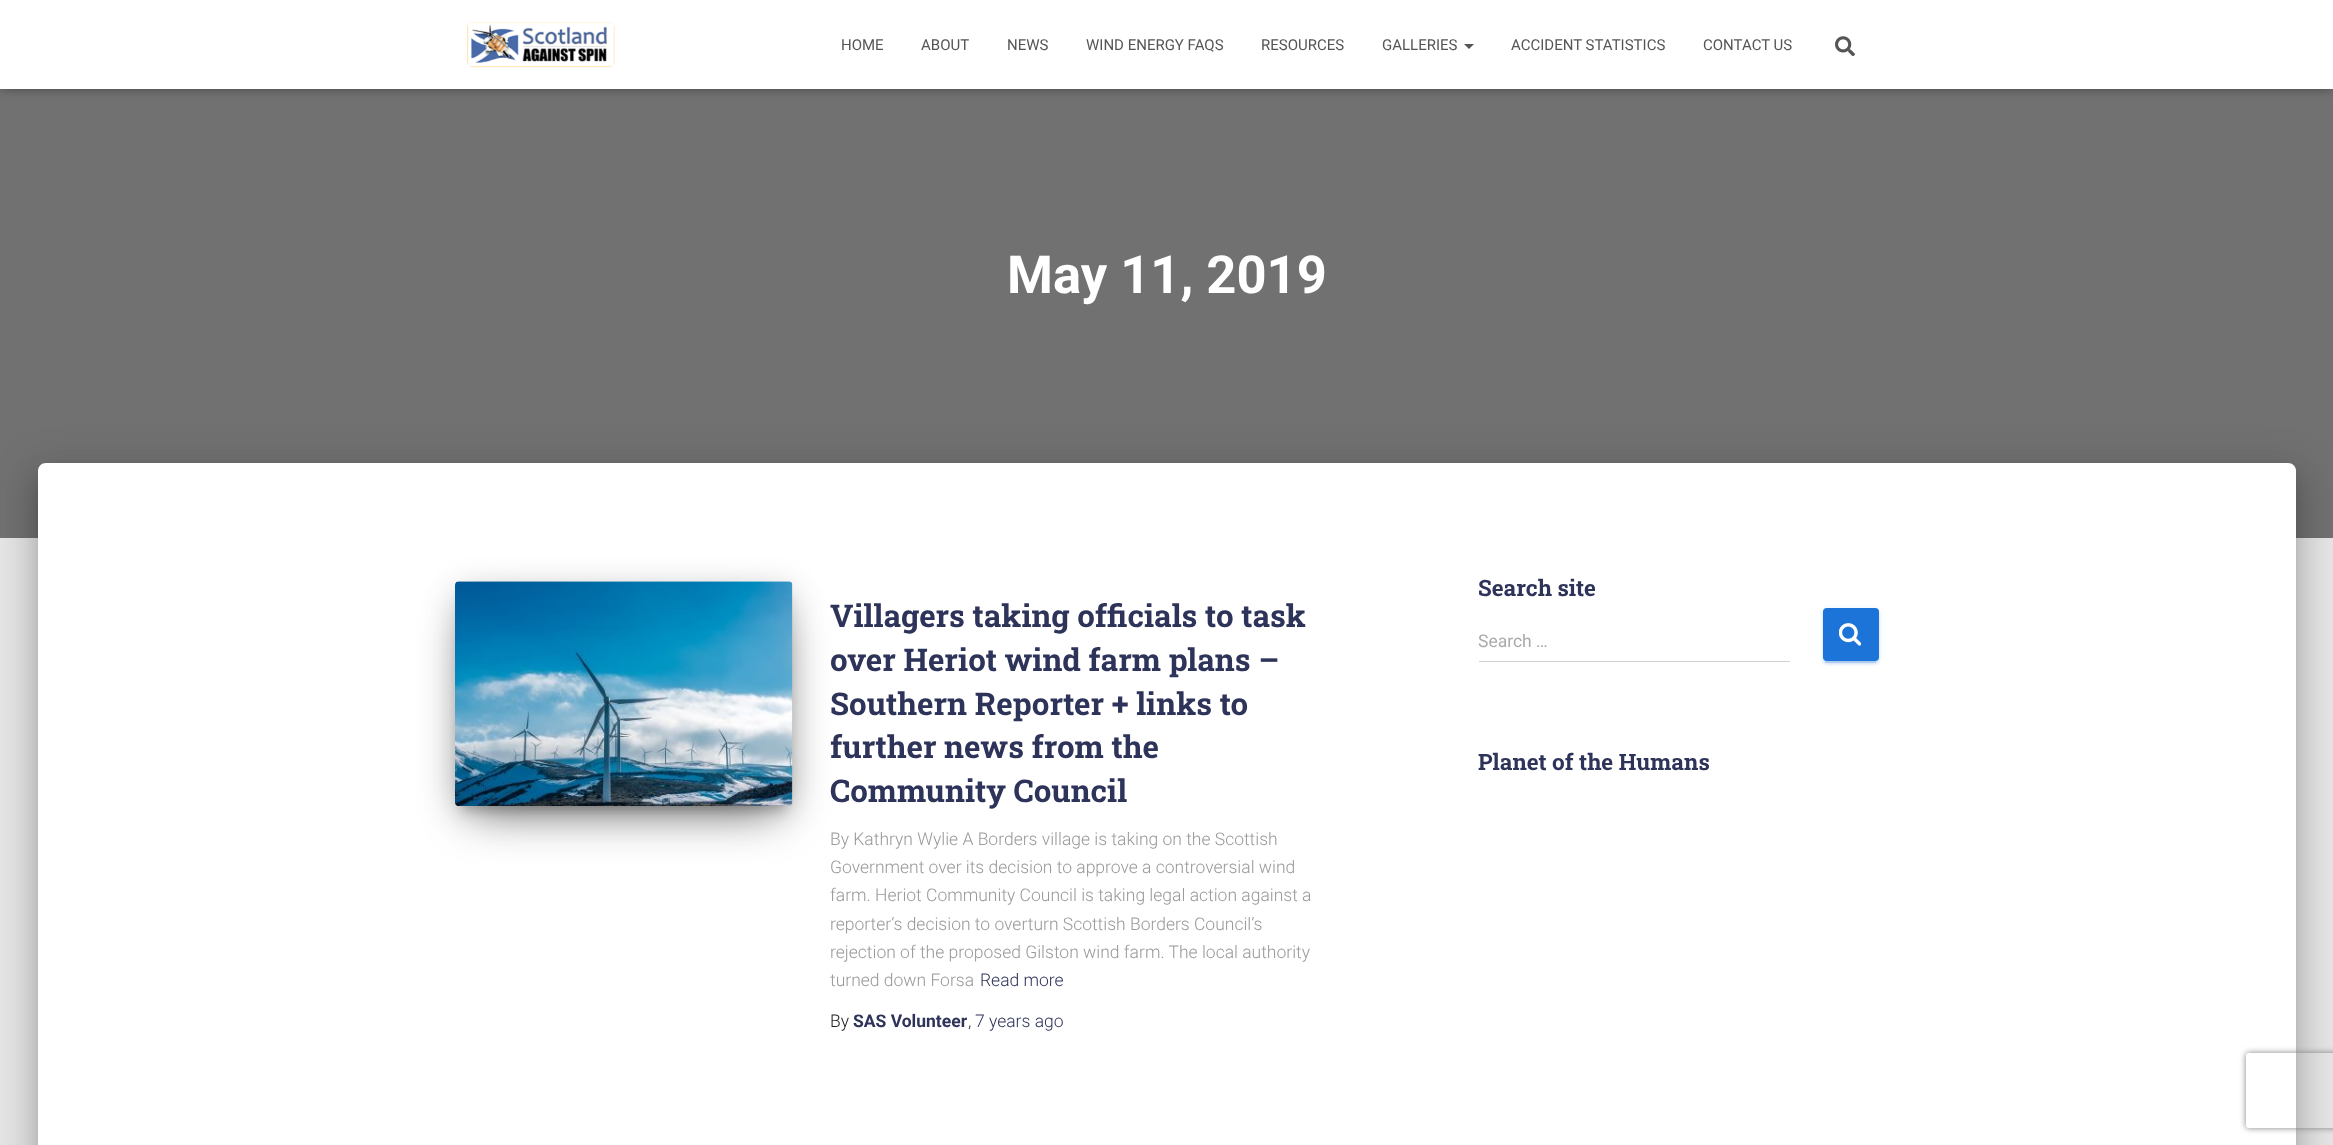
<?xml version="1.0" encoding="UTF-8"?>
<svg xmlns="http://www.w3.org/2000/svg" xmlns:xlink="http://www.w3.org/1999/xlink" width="2333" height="1145">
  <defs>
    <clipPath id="clip1"><path d="M 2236 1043 h 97 v 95 h -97 z m 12.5 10 h 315 c 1.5 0 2.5 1 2.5 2.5 v 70 c 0 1.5 -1 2.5 -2.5 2.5 h -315 c -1.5 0 -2.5 -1 -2.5 -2.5 v -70 c 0 -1.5 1 -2.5 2.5 -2.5 z" clip-rule="evenodd" /></clipPath>
  </defs>
  <rect width="100%" height="100%" fill="#e5e5e5" />
  <rect y="89" width="2333" height="449" fill="#717171" />
  <rect x="3" y="8" width="2328" height="83" fill="#000000" fill-opacity="0.1" filter="blur(3px)" />
  <rect y="1" width="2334" height="89" fill="#000000" fill-opacity="0.12" filter="blur(6px)" />
  <rect x="8" y="9" width="2318" height="74" fill="#000000" fill-opacity="0.42" filter="blur(6px)" />
  <rect width="2333" height="89" fill="#ffffff" />
  <image x="467" y="22" width="148" height="46" xlink:href="image1.png" />
  <path d="M 1464 44 h 10 l -5 5 z" fill="#555555" />
  <image x="1835" y="36" width="20" height="20" xlink:href="image2.png" />
  <rect x="44" y="479" width="2246" height="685" rx="1" fill="#000000" fill-opacity="0.2" filter="blur(6px)" />
  <rect x="31" y="464" width="2272" height="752" rx="14" fill="#000000" fill-opacity="0.12" filter="blur(19px)" />
  <rect x="35" y="480" width="2264" height="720" rx="10" fill="#000000" fill-opacity="0.14" filter="blur(15px)" />
  <path d="M 46 463 h 2242 c 4.5 0 8 3.5 8 8 v 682 h -2258 v -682 c 0 -4.5 3.5 -8 8 -8 z" fill="#ffffff" />
  <rect x="461" y="598" width="325" height="212" fill="#000000" fill-opacity="0.2" filter="blur(6px)" />
  <rect x="455" y="586" width="338" height="225" rx="4" fill="#000000" fill-opacity="0.12" filter="blur(15.5px)" />
  <rect x="470" y="616" width="308" height="195" fill="#000000" fill-opacity="0.56" filter="blur(24px)" />
  <image x="455" y="581" width="338" height="225" xlink:href="image3.png" />
  <rect x="1479" y="661" width="311" height="1" fill="#d2d2d2" />
  <rect x="1823" y="609" width="56" height="54" rx="4" fill="#1c74d8" fill-opacity="0.12" filter="blur(3px)" />
  <rect x="1825" y="614" width="51" height="49" rx="1" fill="#1c74d8" fill-opacity="0.2" filter="blur(0.5px)" />
  <rect x="1823" y="610" width="56" height="54" rx="4" fill="#1c74d8" fill-opacity="0.14" filter="blur(1px)" />
  <rect x="1823" y="608" width="56" height="53" rx="4" fill="#1c74d8" />
  <image x="1839" y="623" width="22" height="23" xlink:href="image4.png" />
  <g clip-path="url(#clip1)">
    <rect x="2246" y="1053" width="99" height="75" rx="2.5" fill="#808080" filter="blur(3px)" />
  </g>
  <text x="841" y="50" style="font-family: Roboto; font-size: 15px; fill: #555555">HOME</text>
  <text x="921" y="50" style="font-family: Roboto; font-size: 15px; fill: #555555">ABOUT</text>
  <text x="1007" y="50" style="font-family: Roboto; font-size: 15px; fill: #555555">NEWS</text>
  <text x="1086" y="50" style="font-family: Roboto; font-size: 15px; fill: #555555">WIND ENERGY FAQS</text>
  <text x="1261" y="50" style="font-family: Roboto; font-size: 15px; fill: #555555">RESOURCES</text>
  <text x="1382" y="50" style="font-family: Roboto; font-size: 15px; fill: #555555">GALLERIES</text>
  <text x="1511" y="50" style="font-family: Roboto; font-size: 15px; fill: #555555">ACCIDENT STATISTICS</text>
  <text x="1703" y="50" style="font-family: Roboto; font-size: 15px; fill: #555555">CONTACT US</text>
  <text x="1007" y="293" style="font-family: Roboto; font-size: 52.5px; font-weight: bold; fill: #ffffff">May 11, 2019</text>
  <text x="830" y="627" style="font-family: Roboto Slab; font-size: 31.25px; font-weight: bold; fill: #2d3359">Villagers taking officials to task</text>
  <text x="830" y="671" style="font-family: Roboto Slab; font-size: 31.25px; font-weight: bold; fill: #2d3359">over Heriot wind farm plans –</text>
  <text x="830" y="715" style="font-family: Roboto Slab; font-size: 31.25px; font-weight: bold; fill: #2d3359">Southern Reporter + links to</text>
  <text x="830" y="758" style="font-family: Roboto Slab; font-size: 31.25px; font-weight: bold; fill: #2d3359">further news from the</text>
  <text x="830" y="802" style="font-family: Roboto Slab; font-size: 31.25px; font-weight: bold; fill: #2d3359">Community Council</text>
  <text x="830" y="845" style="font-family: Roboto; font-size: 17.5px; font-weight: 300; fill: #999999">By Kathryn Wylie A Borders village is taking on the Scottish</text>
  <text x="830" y="873" style="font-family: Roboto; font-size: 17.5px; font-weight: 300; fill: #999999">Government over its decision to approve a controversial wind</text>
  <text x="830" y="901" style="font-family: Roboto; font-size: 17.5px; font-weight: 300; fill: #999999">farm. Heriot Community Council is taking legal action against a</text>
  <text x="830" y="930" style="font-family: Roboto; font-size: 17.5px; font-weight: 300; fill: #999999">reporter’s decision to overturn Scottish Borders Council’s</text>
  <text x="830" y="958" style="font-family: Roboto; font-size: 17.5px; font-weight: 300; fill: #999999">rejection of the proposed Gilston wind farm. The local authority</text>
  <text x="830" y="986" style="font-family: Roboto; font-size: 17.5px; font-weight: 300; fill: #999999">turned down Forsa</text>
  <text x="980" y="986" style="font-family: Roboto; font-size: 17.5px; font-weight: 300; fill: #2d3359">Read more</text>
  <text x="830" y="1027" style="font-family: Roboto; font-size: 17.5px; font-weight: 300; fill: #212121">By</text>
  <text x="853" y="1027" style="font-family: Roboto; font-size: 17.5px; font-weight: bold; fill: #2d3359">SAS Volunteer</text>
  <text x="968" y="1027" style="font-family: Roboto; font-size: 17.5px; font-weight: 300; fill: #212121">,</text>
  <text x="975" y="1027" style="font-family: Roboto; font-size: 17.5px; font-weight: 300; fill: #2d3359">7 years ago</text>
  <text x="1478" y="596" style="font-family: Roboto Slab; font-size: 22.5px; font-weight: bold; fill: #2d3359">Search site</text>
  <text x="1478" y="647" style="font-family: Roboto; font-size: 17.5px; fill: #aaaaaa">Search …</text>
  <text x="1478" y="770" style="font-family: Roboto Slab; font-size: 22.5px; font-weight: bold; fill: #2d3359">Planet of the Humans</text>
</svg>
